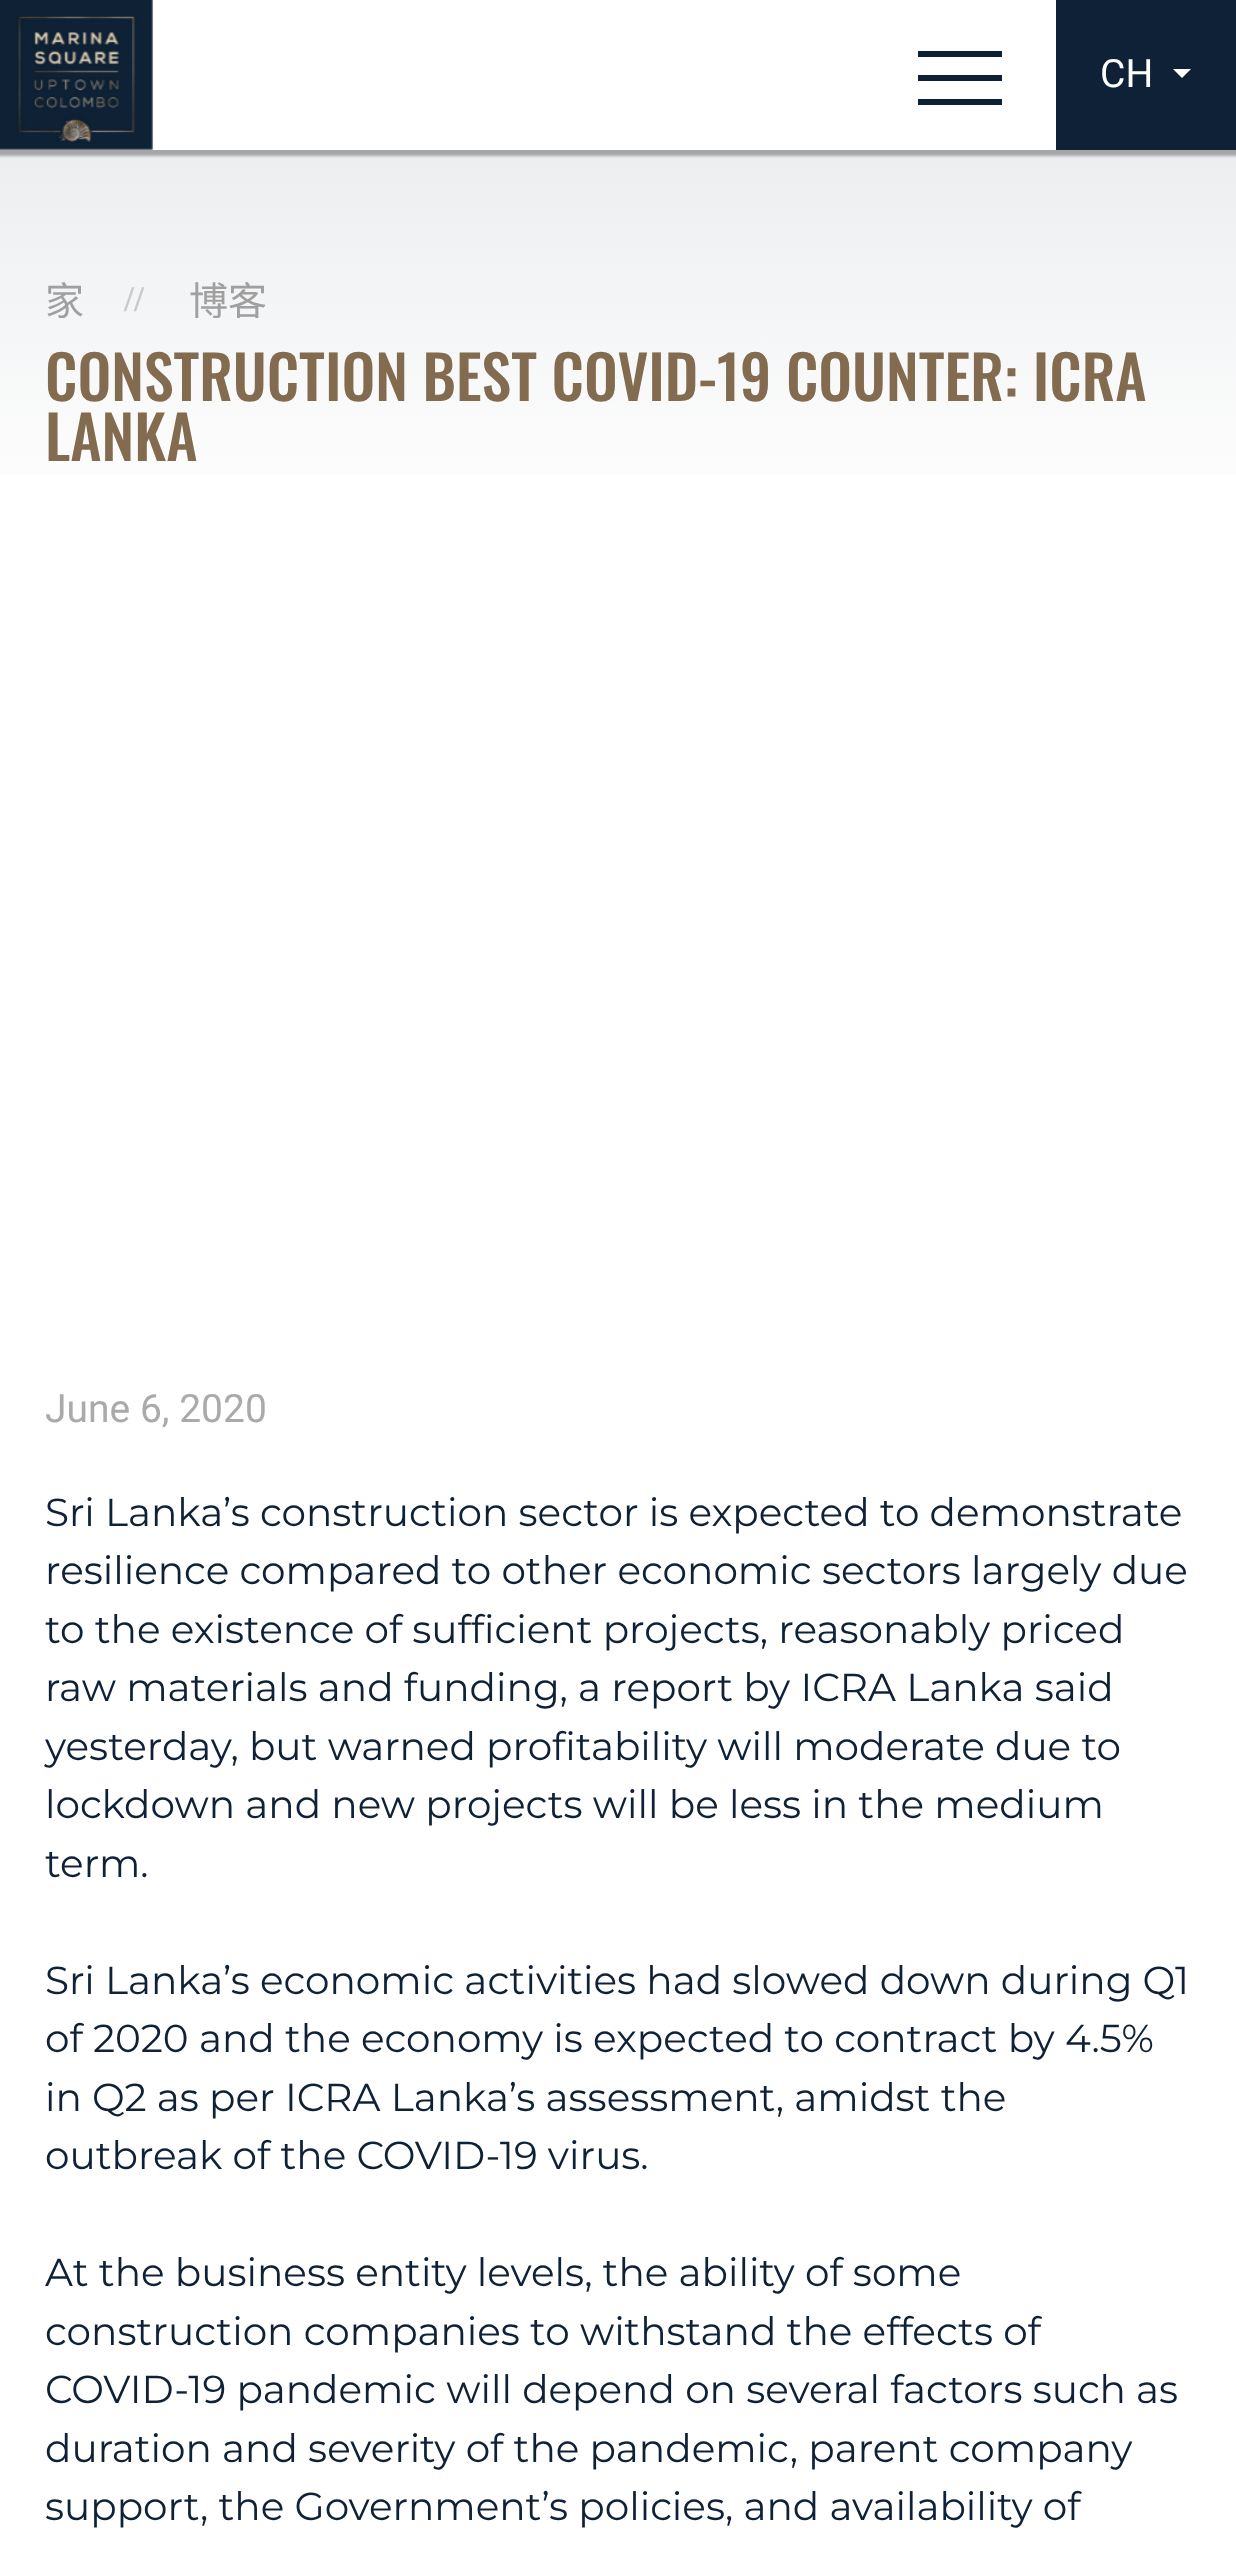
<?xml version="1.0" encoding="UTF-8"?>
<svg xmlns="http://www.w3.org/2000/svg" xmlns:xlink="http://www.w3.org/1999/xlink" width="1236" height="2555">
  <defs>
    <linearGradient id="g1" gradientUnits="userSpaceOnUse" x1="618" y1="0" x2="618" y2="525"><stop offset="0" stop-color="#e5e7ea" /><stop offset="1" stop-color="#ffffff" /></linearGradient>
  </defs>
  <rect width="100%" height="100%" fill="#ffffff" />
  <rect y="150" width="1236" height="325" fill="url(#g1)" />
  <rect x="-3" width="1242" height="156" fill="#000000" fill-opacity="0.3" filter="blur(1.5px)" />
  <rect width="1056" height="150" fill="#ffffff" />
  <image x="0" y="0" width="153" height="150" xlink:href="image1.png" />
  <rect x="918" y="51" width="84" height="6" fill="#0f2136" />
  <rect x="918" y="75" width="84" height="6" fill="#0f2136" />
  <rect x="918" y="99" width="84" height="6" fill="#0f2136" />
  <rect x="1056" width="180" height="150" fill="#0f2136" />
  <path d="M 1173 69 h 18 l -9 9 z" fill="#ffffff" />
  <text x="1100" y="87" style="font-family: Roboto; font-size: 39px; fill: #ffffff">CH</text>
  <text x="45" y="315" style="font-family: Noto Sans CJK SC; font-size: 39px; fill: #a0a0a0">家</text>
  <text x="124" y="311" style="font-family: Liberation Serif; font-size: 36px; font-weight: bold; fill: #cacacb">//</text>
  <text x="189" y="315" style="font-family: Noto Sans CJK SC; font-size: 39px; fill: #a0a0a0">博客</text>
  <text x="45" y="401" style="font-family: Oswald; font-size: 60px; font-weight: 500; fill: #826b4e">CONSTRUCTION BEST COVID-19 COUNTER: ICRA</text>
  <text x="45" y="461" style="font-family: Oswald; font-size: 60px; font-weight: 500; fill: #826b4e">LANKA</text>
  <text x="45" y="1422" style="font-family: Roboto; font-size: 39px; fill: #aaaaaa">June 6, 2020</text>
  <text x="45" y="1526" style="font-family: Montserrat; font-size: 39px; fill: #0f2136">Sri Lanka’s construction sector is expected to demonstrate</text>
  <text x="45" y="1584" style="font-family: Montserrat; font-size: 39px; fill: #0f2136">resilience compared to other economic sectors largely due</text>
  <text x="45" y="1643" style="font-family: Montserrat; font-size: 39px; fill: #0f2136">to the existence of sufficient projects, reasonably priced</text>
  <text x="45" y="1701" style="font-family: Montserrat; font-size: 39px; fill: #0f2136">raw materials and funding, a report by ICRA Lanka said</text>
  <text x="45" y="1760" style="font-family: Montserrat; font-size: 39px; fill: #0f2136">yesterday, but warned profitability will moderate due to</text>
  <text x="45" y="1818" style="font-family: Montserrat; font-size: 39px; fill: #0f2136">lockdown and new projects will be less in the medium</text>
  <text x="45" y="1877" style="font-family: Montserrat; font-size: 39px; fill: #0f2136">term.</text>
  <text x="45" y="1994" style="font-family: Montserrat; font-size: 39px; fill: #0f2136">Sri Lanka’s economic activities had slowed down during Q1</text>
  <text x="45" y="2052" style="font-family: Montserrat; font-size: 39px; fill: #0f2136">of 2020 and the economy is expected to contract by 4.5%</text>
  <text x="45" y="2111" style="font-family: Montserrat; font-size: 39px; fill: #0f2136">in Q2 as per ICRA Lanka’s assessment, amidst the</text>
  <text x="45" y="2169" style="font-family: Montserrat; font-size: 39px; fill: #0f2136">outbreak of the COVID-19 virus.</text>
  <text x="45" y="2286" style="font-family: Montserrat; font-size: 39px; fill: #0f2136">At the business entity levels, the ability of some</text>
  <text x="45" y="2345" style="font-family: Montserrat; font-size: 39px; fill: #0f2136">construction companies to withstand the effects of</text>
  <text x="45" y="2403" style="font-family: Montserrat; font-size: 39px; fill: #0f2136">COVID-19 pandemic will depend on several factors such as</text>
  <text x="45" y="2462" style="font-family: Montserrat; font-size: 39px; fill: #0f2136">duration and severity of the pandemic, parent company</text>
  <text x="45" y="2520" style="font-family: Montserrat; font-size: 39px; fill: #0f2136">support, the Government’s policies, and availability of</text>
</svg>
